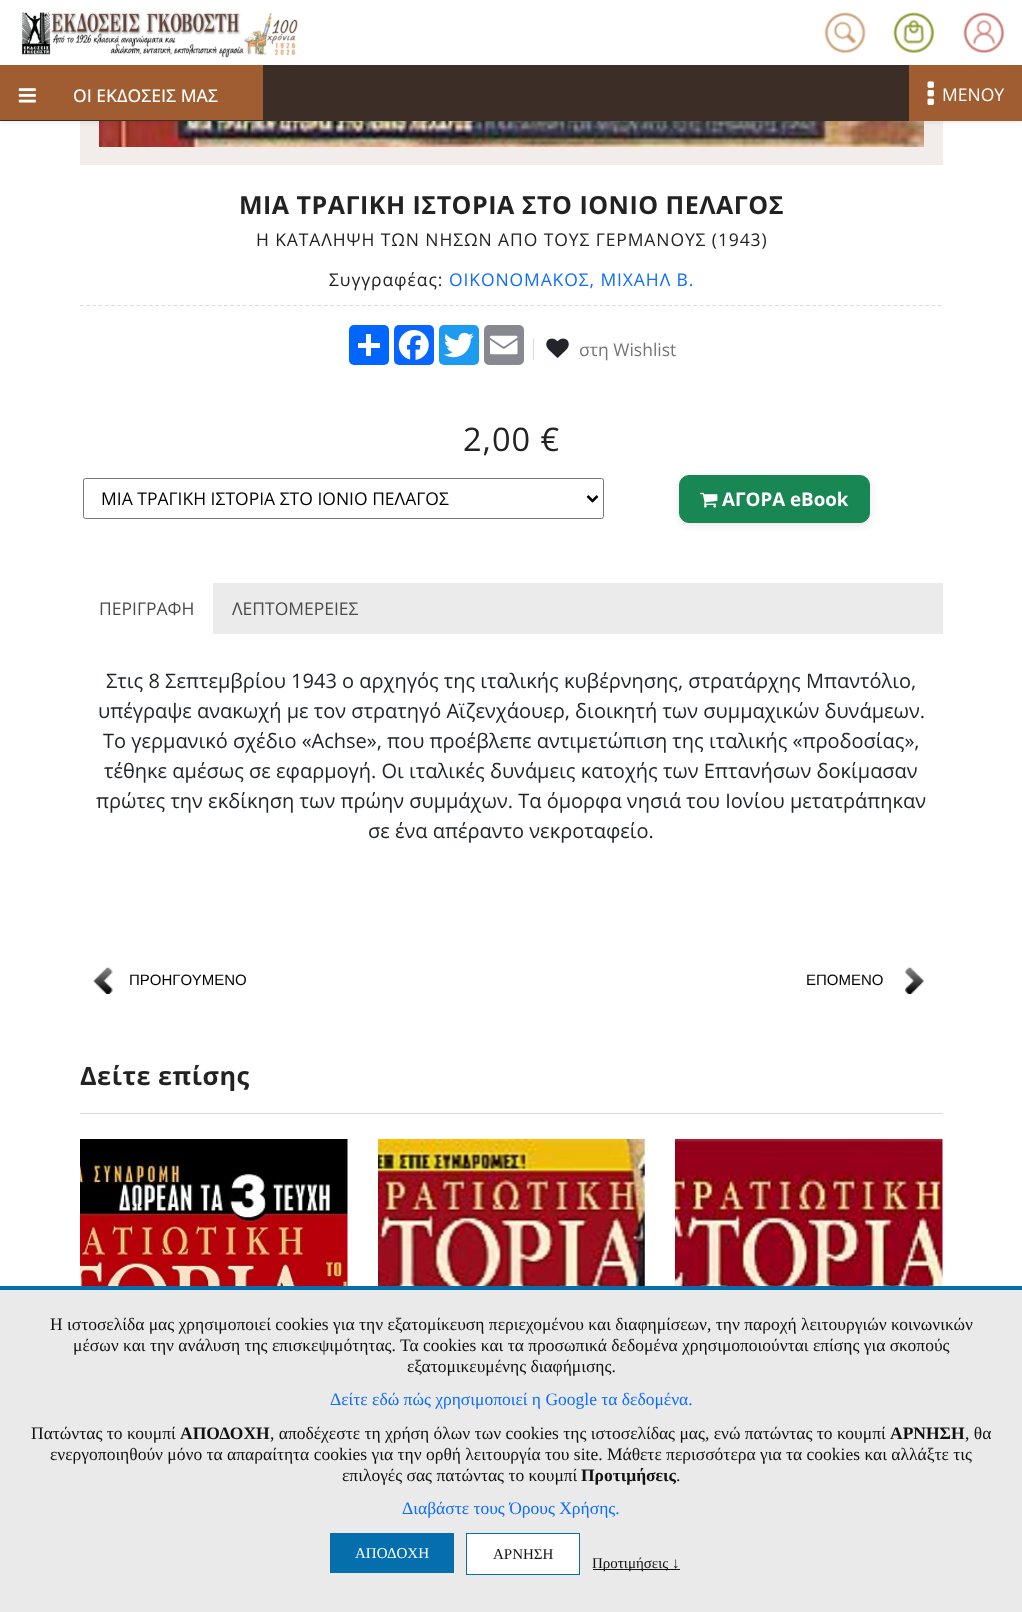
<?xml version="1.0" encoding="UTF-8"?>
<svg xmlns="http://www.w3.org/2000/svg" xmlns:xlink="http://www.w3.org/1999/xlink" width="1022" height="1612">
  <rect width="100%" height="100%" fill="#ffffff" />
  <rect x="80" y="121" width="863" height="44" fill="#f2edeb" />
  <image x="99" y="121" width="825" height="26" xlink:href="image7.png" />
  <rect width="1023" height="121" fill="#000000" fill-opacity="0.12" filter="blur(3px)" />
  <rect width="1022" height="65" fill="#ffffff" />
  <image x="22" y="12" width="276" height="46" xlink:href="image1.png" />
  <image x="824" y="12" width="42" height="41" xlink:href="image2.png" />
  <image x="893" y="12" width="41" height="41" xlink:href="image3.png" />
  <image x="963" y="12" width="41" height="41" xlink:href="image4.png" />
  <rect y="65" width="909" height="56" fill="#3c2e27" />
  <rect y="65" width="263" height="55" fill="#a05d31" />
  <image x="18" y="88" width="18" height="15" xlink:href="image5.png" />
  <rect x="909" y="65" width="113" height="56" fill="#a05d31" />
  <image x="927" y="81" width="7" height="24" xlink:href="image6.png" />
  <path d="M 80 305.5 h 862.5" fill="none" stroke="#dddddd" stroke-width="1.2" stroke-dasharray="3.75 2.51" />
  <rect x="349" y="325" width="40" height="40" rx="5" fill="#0166ff" />
  <rect x="366" y="334" width="5" height="22" fill="#ffffff" />
  <rect x="358" y="343" width="22" height="5" fill="#ffffff" />
  <rect x="394" y="325" width="40" height="40" rx="5" fill="#0866ff" />
  <image x="398" y="330" width="31" height="30" xlink:href="image8.png" />
  <rect x="439" y="325" width="40" height="40" rx="5" fill="#1d9bf0" />
  <image x="444" y="332" width="30" height="26" xlink:href="image9.png" />
  <rect x="484" y="325" width="40" height="40" rx="5" fill="#888990" />
  <image x="490" y="335" width="28" height="20" xlink:href="image10.png" />
  <rect x="533" y="338" width="1" height="22" fill="#dddddd" />
  <image x="546" y="338" width="23" height="20" xlink:href="image11.png" />
  <rect x="83.5" y="478.5" width="520" height="40" rx="2" fill="none" stroke="#767676" />
  <path d="M 587.5 496 l 5 5 l 5 -5" fill="none" stroke="#000000" stroke-width="2.5" />
  <rect x="679" y="478" width="191" height="47" rx="10" fill="#000000" fill-opacity="0.1" filter="blur(4px)" />
  <rect x="679.5" y="475.5" width="190" height="47" rx="9.5" fill="#198754" stroke="#198754" />
  <image x="700" y="492" width="18" height="16" xlink:href="image12.png" />
  <rect x="213" y="583" width="730" height="51" fill="#ebebeb" />
  <image x="93" y="967" width="20" height="27" xlink:href="image13.png" />
  <image x="905" y="967" width="19" height="27" xlink:href="image14.png" />
  <rect x="80" y="1113" width="863" height="1" fill="#dddada" />
  <image x="80" y="1139" width="268" height="147" xlink:href="image15.png" />
  <image x="378" y="1139" width="267" height="147" xlink:href="image16.png" />
  <image x="675" y="1139" width="268" height="147" xlink:href="image17.png" />
  <rect y="1290" width="1022" height="322" fill="#eaeaea" />
  <rect y="1286" width="1022" height="4" fill="#046fac" />
  <rect x="330" y="1533" width="124" height="40" fill="#046fac" />
  <rect x="466.5" y="1533.5" width="113" height="41" fill="#ffffff" stroke="#046fac" />
  <rect x="593" y="1569" width="87" height="1" fill="#111111" />
  <text x="73" y="102" style="font-family: Open Sans; font-size: 17.5px; font-weight: 500; fill: #ffffff">ΟΙ ΕΚΔΟΣΕΙΣ ΜΑΣ</text>
  <text x="942" y="101" style="font-family: Open Sans; font-size: 17.5px; fill: #ffffff">ΜΕΝΟΥ</text>
  <text x="239" y="214" style="font-family: Open Sans; font-size: 25px; font-weight: bold; letter-spacing: 0.5px; fill: #222222">ΜΙΑ ΤΡΑΓΙΚΗ ΙΣΤΟΡΙΑ ΣΤΟ ΙΟΝΙΟ ΠΕΛΑΓΟΣ</text>
  <text x="256" y="246" style="font-family: Open Sans; font-size: 17.5px; letter-spacing: 0.9px; fill: #222222">Η ΚΑΤΑΛΗΨΗ ΤΩΝ ΝΗΣΩΝ ΑΠΟ ΤΟΥΣ ΓΕΡΜΑΝΟΥΣ (1943)</text>
  <text x="329" y="286" style="font-family: Open Sans; font-size: 17.5px; letter-spacing: 0.9px; fill: #222222">Συγγραφέας:</text>
  <text x="449" y="286" style="font-family: Open Sans; font-size: 17.5px; letter-spacing: 0.9px; fill: #0d6efd">ΟΙΚΟΝΟΜΑΚΟΣ, ΜΙΧΑΗΛ Β.</text>
  <text x="579" y="356" style="font-family: Open Sans; font-size: 17.5px; fill: #757575">στη Wishlist</text>
  <text x="463" y="451" style="font-family: Open Sans; font-size: 32.5px; letter-spacing: 1px; fill: #222222">2,00 €</text>
  <text x="101" y="505" style="font-family: Open Sans; font-size: 17.5px; fill: #010101">ΜΙΑ ΤΡΑΓΙΚΗ ΙΣΤΟΡΙΑ ΣΤΟ ΙΟΝΙΟ ΠΕΛΑΓΟΣ</text>
  <text x="722" y="506" style="font-family: Open Sans; font-size: 18.75px; font-weight: bold; fill: #ffffff">ΑΓΟΡΑ eBook</text>
  <text x="99" y="615" style="font-family: Open Sans; font-size: 17.5px; fill: #4b4b4b">ΠΕΡΙΓΡΑΦΗ</text>
  <text x="232" y="615" style="font-family: Open Sans; font-size: 17.5px; fill: #4b4b4b">ΛΕΠΤΟΜΕΡΕΙΕΣ</text>
  <text x="106" y="688" style="font-family: Open Sans; font-size: 20px; fill: #212529">Στις 8 Σεπτεμβρίου 1943 ο αρχηγός της ιταλικής κυβέρνησης, στρατάρχης Μπαντόλιο,</text>
  <text x="98" y="718" style="font-family: Open Sans; font-size: 20px; fill: #212529">υπέγραψε ανακωχή με τον στρατηγό Αϊζενχάουερ, διοικητή των συμμαχικών δυνάμεων.</text>
  <text x="103" y="748" style="font-family: Open Sans; font-size: 20px; fill: #212529">Το γερμανικό σχέδιο «Achse», που προέβλεπε αντιμετώπιση της ιταλικής «προδοσίας»,</text>
  <text x="104" y="778" style="font-family: Open Sans; font-size: 20px; fill: #212529">τέθηκε αμέσως σε εφαρμογή. Οι ιταλικές δυνάμεις κατοχής των Επτανήσων δοκίμασαν</text>
  <text x="96" y="808" style="font-family: Open Sans; font-size: 20px; fill: #212529">πρώτες την εκδίκηση των πρώην συμμάχων. Τα όμορφα νησιά του Ιονίου μετατράπηκαν</text>
  <text x="368" y="838" style="font-family: Open Sans; font-size: 20px; fill: #212529">σε ένα απέραντο νεκροταφείο.</text>
  <text x="129" y="985" style="font-family: Liberation Sans; font-size: 15px; fill: #010101">ΠΡΟΗΓΟΥΜΕΝΟ</text>
  <text x="806" y="985" style="font-family: Liberation Sans; font-size: 15px; fill: #010101">ΕΠΟΜΕΝΟ</text>
  <text x="80" y="1085" style="font-family: Open Sans; font-size: 25.25px; font-weight: bold; letter-spacing: 0.5px; fill: #222222">Δείτε επίσης</text>
  <text x="50" y="1330" style="font-family: Liberation Serif; font-size: 17.5px; fill: #111111">Η ιστοσελίδα μας χρησιμοποιεί cookies για την εξατομίκευση περιεχομένου και διαφημίσεων, την παροχή λειτουργιών κοινωνικών</text>
  <text x="73" y="1351" style="font-family: Liberation Serif; font-size: 17.5px; fill: #111111">μέσων και την ανάλυση της επισκεψιμότητας. Τα cookies και τα προσωπικά δεδομένα χρησιμοποιούνται επίσης για σκοπούς</text>
  <text x="407" y="1372" style="font-family: Liberation Serif; font-size: 17.5px; fill: #111111">εξατομικευμένης διαφήμισης.</text>
  <text x="330" y="1405" style="font-family: Liberation Serif; font-size: 17.5px; fill: #0d6efd">Δείτε εδώ πώς χρησιμοποιεί η Google τα δεδομένα.</text>
  <text x="31" y="1439" style="font-family: Liberation Serif; font-size: 17.5px; fill: #111111">Πατώντας το κουμπί</text>
  <text x="180" y="1439" style="font-family: Liberation Serif; font-size: 17.5px; font-weight: bold; fill: #111111">ΑΠΟΔΟΧΗ</text>
  <text x="270" y="1439" style="font-family: Liberation Serif; font-size: 17.5px; fill: #111111">, αποδέχεστε τη χρήση όλων των cookies της ιστοσελίδας μας, ενώ πατώντας το κουμπί</text>
  <text x="890" y="1439" style="font-family: Liberation Serif; font-size: 17.5px; font-weight: bold; fill: #111111">ΑΡΝΗΣΗ</text>
  <text x="965" y="1439" style="font-family: Liberation Serif; font-size: 17.5px; fill: #111111">, θα</text>
  <text x="50" y="1460" style="font-family: Liberation Serif; font-size: 17.5px; fill: #111111">ενεργοποιηθούν μόνο τα απαραίτητα cookies για την ορθή λειτουργία του site. Μάθετε περισσότερα για τα cookies και αλλάξτε τις</text>
  <text x="342" y="1481" style="font-family: Liberation Serif; font-size: 17.5px; fill: #111111">επιλογές σας πατώντας το κουμπί</text>
  <text x="581" y="1481" style="font-family: Liberation Serif; font-size: 17.5px; font-weight: bold; fill: #111111">Προτιμήσεις</text>
  <text x="676" y="1481" style="font-family: Liberation Serif; font-size: 17.5px; fill: #111111">.</text>
  <text x="402" y="1514" style="font-family: Liberation Serif; font-size: 17.5px; fill: #0d6efd">Διαβάστε τους Όρους Χρήσης.</text>
  <text x="355" y="1558" style="font-family: Liberation Serif; font-size: 15px; fill: #ffffff">ΑΠΟΔΟΧΗ</text>
  <text x="493" y="1559" style="font-family: Liberation Serif; font-size: 15px; fill: #111111">ΑΡΝΗΣΗ</text>
  <text x="592" y="1568" style="font-family: Liberation Serif; font-size: 15px; fill: #111111">Προτιμήσεις ↓</text>
</svg>
